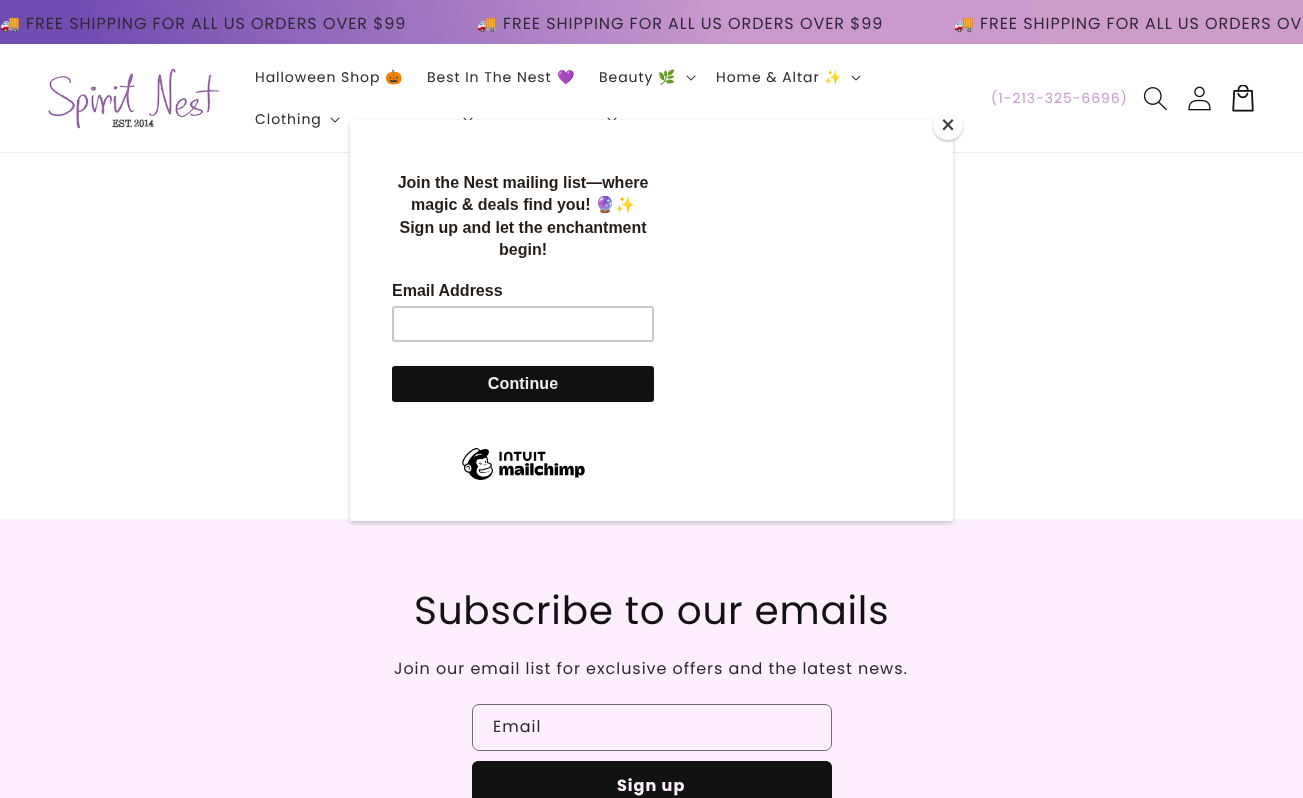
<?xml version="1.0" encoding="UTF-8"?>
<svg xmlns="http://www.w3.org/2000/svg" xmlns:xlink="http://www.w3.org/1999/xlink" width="1303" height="798">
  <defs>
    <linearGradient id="g1" gradientUnits="userSpaceOnUse" x1="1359" y1="209" x2="-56" y2="589"><stop offset="0.18" stop-color="#ce9cc8" /><stop offset="0.18" stop-color="#cb99ce" /><stop offset="0.38" stop-color="#cb99ce" /><stop offset="0.81" stop-color="#714db1" /></linearGradient>
  </defs>
  <rect width="100%" height="100%" fill="#ffffff" />
  <rect width="1303" height="44" fill="url(#g1)" />
  <rect y="152" width="1303" height="1" fill="#ececec" />
  <image x="48" y="68" width="172" height="61" xlink:href="image1.png" />
  <image x="686" y="75" width="10" height="6" xlink:href="image2.png" />
  <image x="851" y="75" width="10" height="6" xlink:href="image2.png" />
  <image x="330" y="117" width="10" height="6" xlink:href="image2.png" />
  <image x="463" y="117" width="10" height="3" xlink:href="image3.png" />
  <image x="607" y="117" width="10" height="3" xlink:href="image3.png" />
  <image x="1143" y="87" width="24" height="24" xlink:href="image4.png" />
  <image x="1188" y="86" width="23" height="25" xlink:href="image5.png" />
  <image x="1232" y="85" width="22" height="27" xlink:href="image6.png" />
  <rect y="519" width="1303" height="279" fill="#feefff" />
  <rect x="350" y="122" width="603" height="401" fill="#000000" fill-opacity="0.2" filter="blur(2px)" />
  <image x="350" y="120" width="603" height="401" xlink:href="image7.png" />
  <rect x="933" y="112" width="30" height="30" rx="15" fill="#000000" fill-opacity="0.2" filter="blur(1px)" />
  <circle cx="948" cy="125" r="15" fill="#ffffff" />
  <path d="M 952 119 l 1.5 1.5 l -9.5 10 l -1.5 -1.5 z" fill="#414141" />
  <path d="M 942.5 120.5 l 1.5 -1.5 l 9.5 10 l -1.5 1.5 z" fill="#414141" />
  <rect x="472.5" y="704.5" width="359" height="46" rx="6.5" fill="none" stroke="#706a71" />
  <rect x="473" y="762" width="358" height="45" rx="7" fill="none" stroke="#121212" stroke-width="2" />
  <rect x="472" y="761" width="360" height="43" rx="6" fill="#121212" />
  <text x="0" y="29" style="font-family: Noto Color Emoji; font-size: 16px; letter-spacing: 0.95px; fill: #2e2a39">🚚</text>
  <text x="26" y="29" style="font-family: Poppins; font-size: 16px; letter-spacing: 0.95px; fill: #2e2a39">FREE SHIPPING FOR ALL US ORDERS OVER $99</text>
  <text x="477" y="29" style="font-family: Noto Color Emoji; font-size: 16px; letter-spacing: 0.95px; fill: #2e2a39">🚚</text>
  <text x="503" y="29" style="font-family: Poppins; font-size: 16px; letter-spacing: 0.95px; fill: #2e2a39">FREE SHIPPING FOR ALL US ORDERS OVER $99</text>
  <text x="954" y="29" style="font-family: Noto Color Emoji; font-size: 16px; letter-spacing: 0.95px; fill: #2e2a39">🚚</text>
  <text x="980" y="29" style="font-family: Poppins; font-size: 16px; letter-spacing: 0.95px; fill: #2e2a39">FREE SHIPPING FOR ALL US ORDERS OV</text>
  <text x="255" y="82" style="font-family: Poppins; font-size: 14px; letter-spacing: 0.95px; fill: #2a282a">Halloween Shop</text>
  <text x="385" y="82" style="font-family: Noto Color Emoji; font-size: 14px; letter-spacing: 0.95px; fill: #2a282a">🎃</text>
  <text x="427" y="82" style="font-family: Poppins; font-size: 14px; letter-spacing: 0.95px; fill: #2a282a">Best In The Nest</text>
  <text x="557" y="82" style="font-family: Noto Color Emoji; font-size: 14px; letter-spacing: 0.95px; fill: #2a282a">💜</text>
  <text x="599" y="82" style="font-family: Poppins; font-size: 14px; letter-spacing: 0.95px; fill: #2a282a">Beauty</text>
  <text x="658" y="82" style="font-family: Noto Color Emoji; font-size: 14px; letter-spacing: 0.95px; fill: #2a282a">🌿</text>
  <text x="716" y="82" style="font-family: Poppins; font-size: 14px; letter-spacing: 0.95px; fill: #2a282a">Home &amp; Altar</text>
  <text x="824" y="82" style="font-family: Noto Color Emoji; font-size: 14px; letter-spacing: 0.95px; fill: #2a282a">✨</text>
  <text x="255" y="124" style="font-family: Poppins; font-size: 14px; letter-spacing: 0.95px; fill: #2a282a">Clothing</text>
  <text x="991" y="103" style="font-family: Poppins; font-size: 14px; letter-spacing: 0.95px; fill: #cb99ce">(1-213-325-6696)</text>
  <text x="414" y="624" style="font-family: Poppins; font-size: 39px; letter-spacing: 0.75px; fill: #121212">Subscribe to our emails</text>
  <text x="394" y="674" style="font-family: Poppins; font-size: 16px; letter-spacing: 0.95px; fill: #2a282a">Join our email list for exclusive offers and the latest news.</text>
  <text x="493" y="732" style="font-family: Poppins; font-size: 16px; letter-spacing: 1px; fill: #2a282a">Email</text>
  <text x="617" y="791" style="font-family: Poppins; font-size: 16px; font-weight: bold; letter-spacing: 1px; fill: #feefff">Sign up</text>
</svg>
